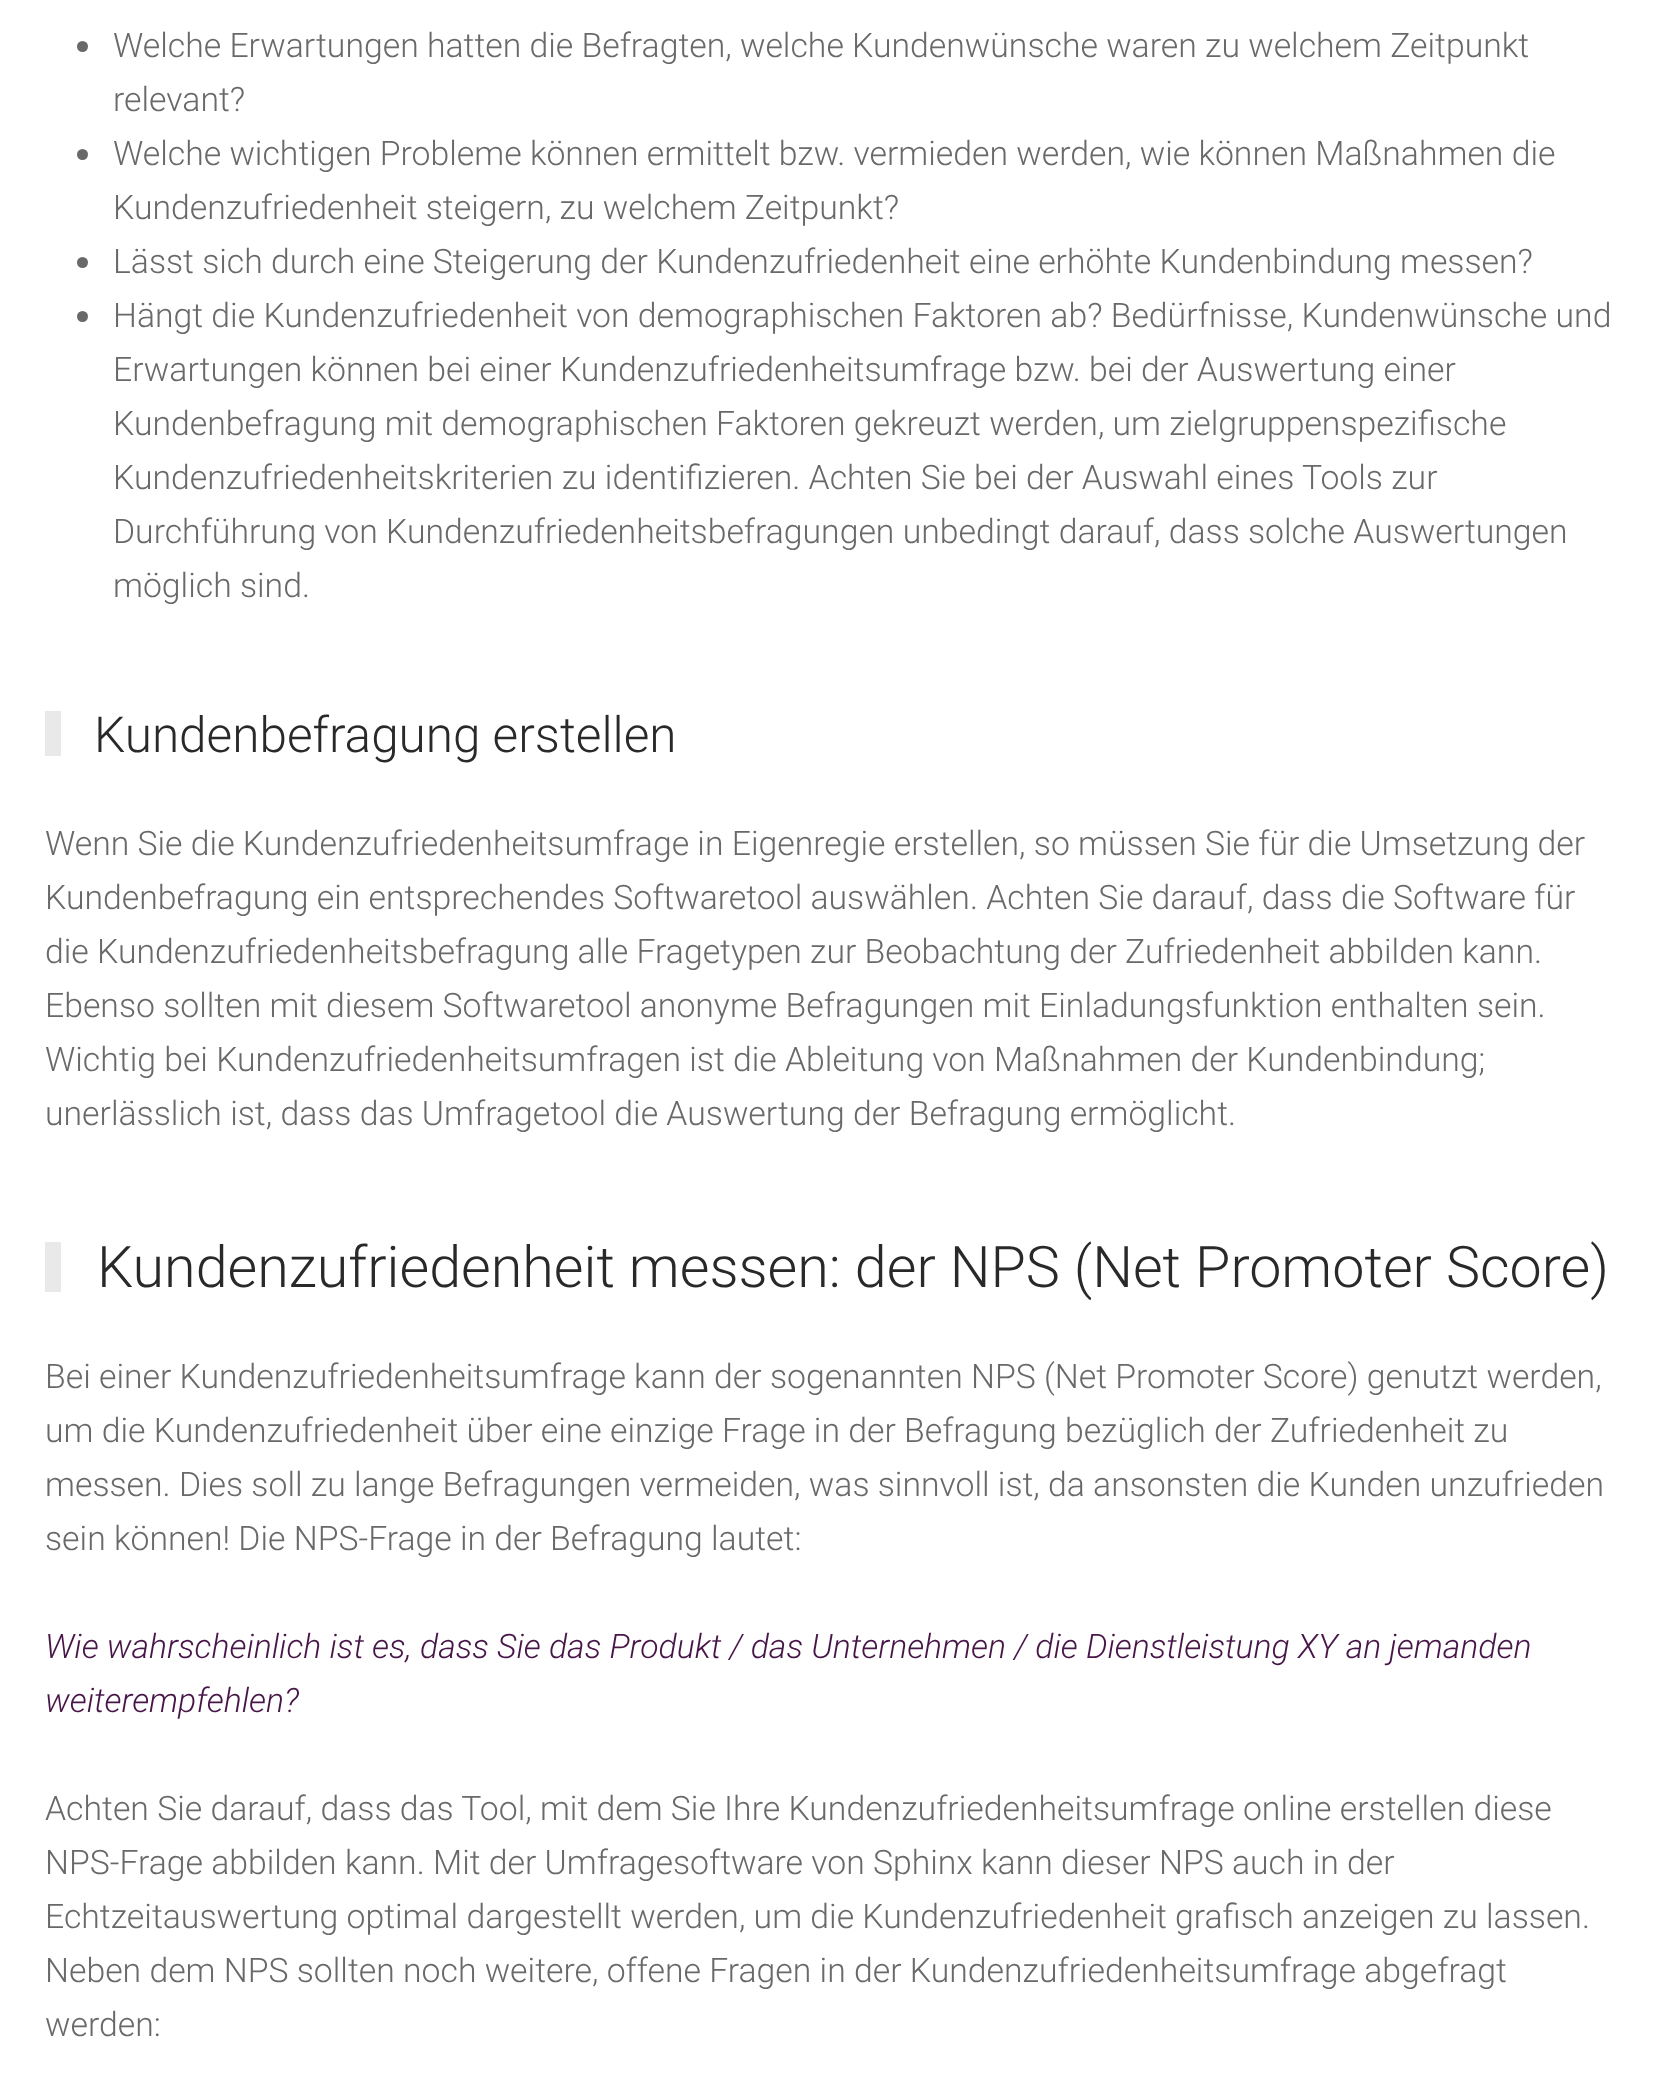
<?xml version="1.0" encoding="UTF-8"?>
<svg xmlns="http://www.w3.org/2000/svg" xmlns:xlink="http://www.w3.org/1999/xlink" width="1665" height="2098">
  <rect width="100%" height="100%" fill="#ffffff" />
  <circle cx="82.5" cy="46.5" r="5.5" fill="#696969" />
  <circle cx="82.5" cy="154.5" r="5.5" fill="#696969" />
  <circle cx="82.5" cy="262.5" r="5.5" fill="#696969" />
  <circle cx="82.5" cy="316.5" r="5.5" fill="#696969" />
  <rect x="45" y="711" width="16" height="45" fill="#e9e9e9" />
  <rect x="45" y="1242" width="16" height="50" fill="#e9e9e9" />
  <text x="113" y="57" style="font-family: Roboto; font-size: 33.75px; font-weight: 300; fill: #696969">Welche Erwartungen hatten die Befragten, welche Kundenwünsche waren zu welchem Zeitpunkt</text>
  <text x="113" y="111" style="font-family: Roboto; font-size: 33.75px; font-weight: 300; fill: #696969">relevant?</text>
  <text x="113" y="165" style="font-family: Roboto; font-size: 33.75px; font-weight: 300; fill: #696969">Welche wichtigen Probleme können ermittelt bzw. vermieden werden, wie können Maßnahmen die</text>
  <text x="113" y="219" style="font-family: Roboto; font-size: 33.75px; font-weight: 300; fill: #696969">Kundenzufriedenheit steigern, zu welchem Zeitpunkt?</text>
  <text x="113" y="273" style="font-family: Roboto; font-size: 33.75px; font-weight: 300; fill: #696969">Lässt sich durch eine Steigerung der Kundenzufriedenheit eine erhöhte Kundenbindung messen?</text>
  <text x="113" y="327" style="font-family: Roboto; font-size: 33.75px; font-weight: 300; fill: #696969">Hängt die Kundenzufriedenheit von demographischen Faktoren ab? Bedürfnisse, Kundenwünsche und</text>
  <text x="113" y="381" style="font-family: Roboto; font-size: 33.75px; font-weight: 300; fill: #696969">Erwartungen können bei einer Kundenzufriedenheitsumfrage bzw. bei der Auswertung einer</text>
  <text x="113" y="435" style="font-family: Roboto; font-size: 33.75px; font-weight: 300; fill: #696969">Kundenbefragung mit demographischen Faktoren gekreuzt werden, um zielgruppenspezifische</text>
  <text x="113" y="489" style="font-family: Roboto; font-size: 33.75px; font-weight: 300; fill: #696969">Kundenzufriedenheitskriterien zu identifizieren. Achten Sie bei der Auswahl eines Tools zur</text>
  <text x="113" y="543" style="font-family: Roboto; font-size: 33.75px; font-weight: 300; fill: #696969">Durchführung von Kundenzufriedenheitsbefragungen unbedingt darauf, dass solche Auswertungen</text>
  <text x="113" y="597" style="font-family: Roboto; font-size: 33.75px; font-weight: 300; fill: #696969">möglich sind.</text>
  <text x="94" y="752" style="font-family: Roboto; font-size: 49.5px; font-weight: 300; fill: #292929">Kundenbefragung erstellen</text>
  <text x="45" y="855" style="font-family: Roboto; font-size: 33.75px; font-weight: 300; fill: #696969">Wenn Sie die Kundenzufriedenheitsumfrage in Eigenregie erstellen, so müssen Sie für die Umsetzung der</text>
  <text x="45" y="909" style="font-family: Roboto; font-size: 33.75px; font-weight: 300; fill: #696969">Kundenbefragung ein entsprechendes Softwaretool auswählen. Achten Sie darauf, dass die Software für</text>
  <text x="45" y="963" style="font-family: Roboto; font-size: 33.75px; font-weight: 300; fill: #696969">die Kundenzufriedenheitsbefragung alle Fragetypen zur Beobachtung der Zufriedenheit abbilden kann.</text>
  <text x="45" y="1017" style="font-family: Roboto; font-size: 33.75px; font-weight: 300; fill: #696969">Ebenso sollten mit diesem Softwaretool anonyme Befragungen mit Einladungsfunktion enthalten sein.</text>
  <text x="45" y="1071" style="font-family: Roboto; font-size: 33.75px; font-weight: 300; fill: #696969">Wichtig bei Kundenzufriedenheitsumfragen ist die Ableitung von Maßnahmen der Kundenbindung;</text>
  <text x="45" y="1125" style="font-family: Roboto; font-size: 33.75px; font-weight: 300; fill: #696969">unerlässlich ist, dass das Umfragetool die Auswertung der Befragung ermöglicht.</text>
  <text x="97" y="1287" style="font-family: Roboto; font-size: 57.4px; font-weight: 300; fill: #292929">Kundenzufriedenheit messen: der NPS (Net Promoter Score)</text>
  <text x="45" y="1388" style="font-family: Roboto; font-size: 33.75px; font-weight: 300; fill: #696969">Bei einer Kundenzufriedenheitsumfrage kann der sogenannten NPS (Net Promoter Score) genutzt werden,</text>
  <text x="45" y="1442" style="font-family: Roboto; font-size: 33.75px; font-weight: 300; fill: #696969">um die Kundenzufriedenheit über eine einzige Frage in der Befragung bezüglich der Zufriedenheit zu</text>
  <text x="45" y="1496" style="font-family: Roboto; font-size: 33.75px; font-weight: 300; fill: #696969">messen. Dies soll zu lange Befragungen vermeiden, was sinnvoll ist, da ansonsten die Kunden unzufrieden</text>
  <text x="45" y="1550" style="font-family: Roboto; font-size: 33.75px; font-weight: 300; fill: #696969">sein können! Die NPS-Frage in der Befragung lautet:</text>
  <text x="45" y="1658" style="font-family: Roboto; font-size: 33.75px; font-weight: 300; font-style: italic; fill: #471548">Wie wahrscheinlich ist es, dass Sie das Produkt / das Unternehmen / die Dienstleistung XY an jemanden</text>
  <text x="45" y="1712" style="font-family: Roboto; font-size: 33.75px; font-weight: 300; font-style: italic; fill: #471548">weiterempfehlen?</text>
  <text x="45" y="1820" style="font-family: Roboto; font-size: 33.75px; font-weight: 300; fill: #696969">Achten Sie darauf, dass das Tool, mit dem Sie Ihre Kundenzufriedenheitsumfrage online erstellen diese</text>
  <text x="45" y="1874" style="font-family: Roboto; font-size: 33.75px; font-weight: 300; fill: #696969">NPS-Frage abbilden kann. Mit der Umfragesoftware von Sphinx kann dieser NPS auch in der</text>
  <text x="45" y="1928" style="font-family: Roboto; font-size: 33.75px; font-weight: 300; fill: #696969">Echtzeitauswertung optimal dargestellt werden, um die Kundenzufriedenheit grafisch anzeigen zu lassen.</text>
  <text x="45" y="1982" style="font-family: Roboto; font-size: 33.75px; font-weight: 300; fill: #696969">Neben dem NPS sollten noch weitere, offene Fragen in der Kundenzufriedenheitsumfrage abgefragt</text>
  <text x="45" y="2036" style="font-family: Roboto; font-size: 33.75px; font-weight: 300; fill: #696969">werden:</text>
</svg>
